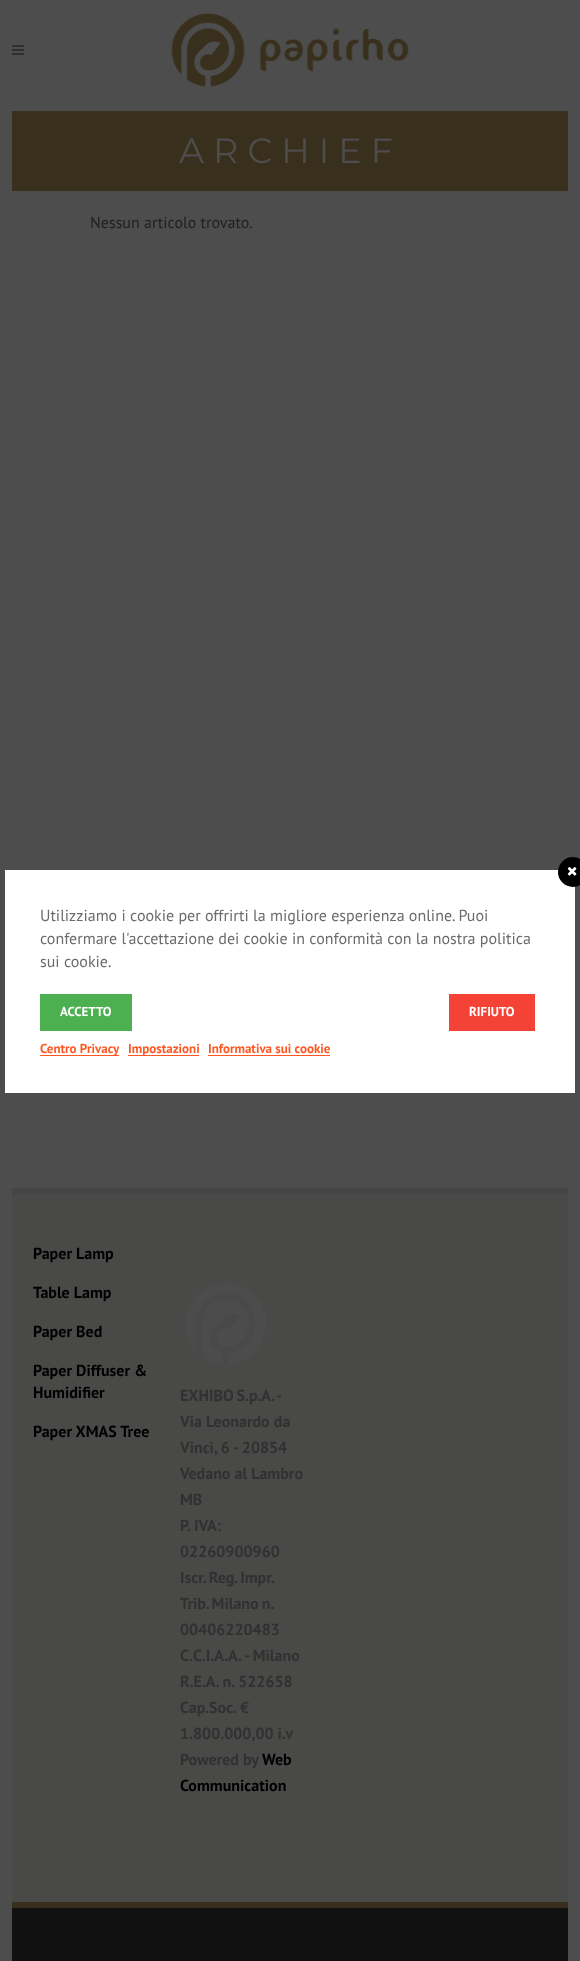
<?xml version="1.0" encoding="UTF-8"?>
<svg xmlns="http://www.w3.org/2000/svg" xmlns:xlink="http://www.w3.org/1999/xlink" width="580" height="1961">
  <rect width="100%" height="100%" fill="#4d4d4d" />
  <image x="12" y="45" width="12" height="10" xlink:href="image1.png" />
  <image x="171" y="13" width="238" height="74" xlink:href="image2.png" />
  <rect x="12" y="111" width="556" height="80" fill="#38301d" />
  <rect x="12" y="1194" width="556" height="708" fill="#494948" />
  <rect x="12" y="1188" width="556" height="6" fill="#454545" />
  <image x="185" y="1283" width="81" height="81" xlink:href="image3.png" />
  <rect x="12" y="1908" width="556" height="53" fill="#111111" />
  <rect x="12" y="1902" width="556" height="6" fill="#382f1e" />
  <rect x="5" y="870" width="570" height="223" fill="#ffffff" />
  <circle cx="573" cy="872" r="15" fill="#000000" />
  <image x="567" y="867" width="10" height="9" xlink:href="image4.png" />
  <rect x="40" y="994" width="92" height="37" fill="#4caf50" />
  <rect x="449" y="994" width="86" height="37" fill="#f44336" />
  <rect x="40" y="1055" width="79" height="1" fill="#ff5722" />
  <rect x="128" y="1055" width="71" height="1" fill="#ff5722" />
  <rect x="208" y="1055" width="122" height="1" fill="#ff5722" />
  <text x="179" y="163" style="font-family: Montserrat; font-size: 35px; letter-spacing: 9px; fill: #4d4d4d">ARCHIEF</text>
  <text x="90" y="228" style="font-family: PT Sans; font-size: 16px; fill: #202020">Nessun articolo trovato.</text>
  <text x="33" y="1259" style="font-family: PT Sans; font-size: 16px; font-weight: bold; fill: #000000">Paper Lamp</text>
  <text x="33" y="1298" style="font-family: PT Sans; font-size: 16px; font-weight: bold; fill: #000000">Table Lamp</text>
  <text x="33" y="1337" style="font-family: PT Sans; font-size: 16px; font-weight: bold; fill: #000000">Paper Bed</text>
  <text x="33" y="1376" style="font-family: PT Sans; font-size: 16px; font-weight: bold; fill: #000000">Paper Diffuser &amp;</text>
  <text x="33" y="1398" style="font-family: PT Sans; font-size: 16px; font-weight: bold; fill: #000000">Humidifier</text>
  <text x="33" y="1437" style="font-family: PT Sans; font-size: 16px; font-weight: bold; fill: #000000">Paper XMAS Tree</text>
  <text x="180" y="1401" word-spacing="-1" style="font-family: PT Sans; font-size: 16px; font-weight: bold; fill: #313131">EXHIBO S.p.A. -</text>
  <text x="180" y="1427" style="font-family: PT Sans; font-size: 16px; font-weight: bold; fill: #313131">Via Leonardo da</text>
  <text x="180" y="1453" style="font-family: PT Sans; font-size: 16px; font-weight: bold; fill: #313131">Vinci, 6 - 20854</text>
  <text x="180" y="1479" style="font-family: PT Sans; font-size: 16px; font-weight: bold; fill: #313131">Vedano al Lambro</text>
  <text x="180" y="1505" style="font-family: PT Sans; font-size: 16px; font-weight: bold; fill: #313131">MB</text>
  <text x="180" y="1531" style="font-family: PT Sans; font-size: 16px; font-weight: bold; fill: #313131">P. IVA:</text>
  <text x="180" y="1557" style="font-family: PT Sans; font-size: 16px; font-weight: bold; fill: #313131">02260900960</text>
  <text x="180" y="1583" word-spacing="-1" style="font-family: PT Sans; font-size: 16px; font-weight: bold; fill: #313131">Iscr. Reg. Impr.</text>
  <text x="180" y="1609" word-spacing="-1" style="font-family: PT Sans; font-size: 16px; font-weight: bold; fill: #313131">Trib. Milano n.</text>
  <text x="180" y="1635" style="font-family: PT Sans; font-size: 16px; font-weight: bold; fill: #313131">00406220483</text>
  <text x="180" y="1661" style="font-family: PT Sans; font-size: 16px; font-weight: bold; fill: #313131">C.C.I.A.A. - Milano</text>
  <text x="180" y="1687" style="font-family: PT Sans; font-size: 16px; font-weight: bold; fill: #313131">R.E.A. n. 522658</text>
  <text x="180" y="1713" style="font-family: PT Sans; font-size: 16px; font-weight: bold; fill: #313131">Cap.Soc. €</text>
  <text x="180" y="1739" style="font-family: PT Sans; font-size: 16px; font-weight: bold; fill: #313131">1.800.000,00 i.v</text>
  <text x="180" y="1765" style="font-family: PT Sans; font-size: 16px; font-weight: bold; fill: #313131">Powered by</text>
  <text x="262" y="1765" style="font-family: PT Sans; font-size: 16px; font-weight: bold; fill: #000000">Web</text>
  <text x="180" y="1791" style="font-family: PT Sans; font-size: 16px; font-weight: bold; fill: #000000">Communication</text>
  <text x="40" y="921" style="font-family: PT Sans; font-size: 16px; fill: #6b6b6b">Utilizziamo i cookie per offrirti la migliore esperienza online. Puoi</text>
  <text x="40" y="944" style="font-family: PT Sans; font-size: 16px; fill: #6b6b6b">confermare l'accettazione dei cookie in conformità con la nostra politica</text>
  <text x="40" y="967" style="font-family: PT Sans; font-size: 16px; fill: #6b6b6b">sui cookie.</text>
  <text x="60" y="1016" style="font-family: PT Sans; font-size: 13px; font-weight: bold; fill: #ffffff">ACCETTO</text>
  <text x="469" y="1016" style="font-family: PT Sans; font-size: 13px; font-weight: bold; fill: #ffffff">RIFIUTO</text>
  <text x="40" y="1053" style="font-family: PT Sans; font-size: 13px; font-weight: bold; fill: #ff5722">Centro Privacy</text>
  <text x="128" y="1053" style="font-family: PT Sans; font-size: 13px; font-weight: bold; fill: #ff5722">Impostazioni</text>
  <text x="208" y="1053" style="font-family: PT Sans; font-size: 13px; font-weight: bold; fill: #ff5722">Informativa sui cookie</text>
</svg>
